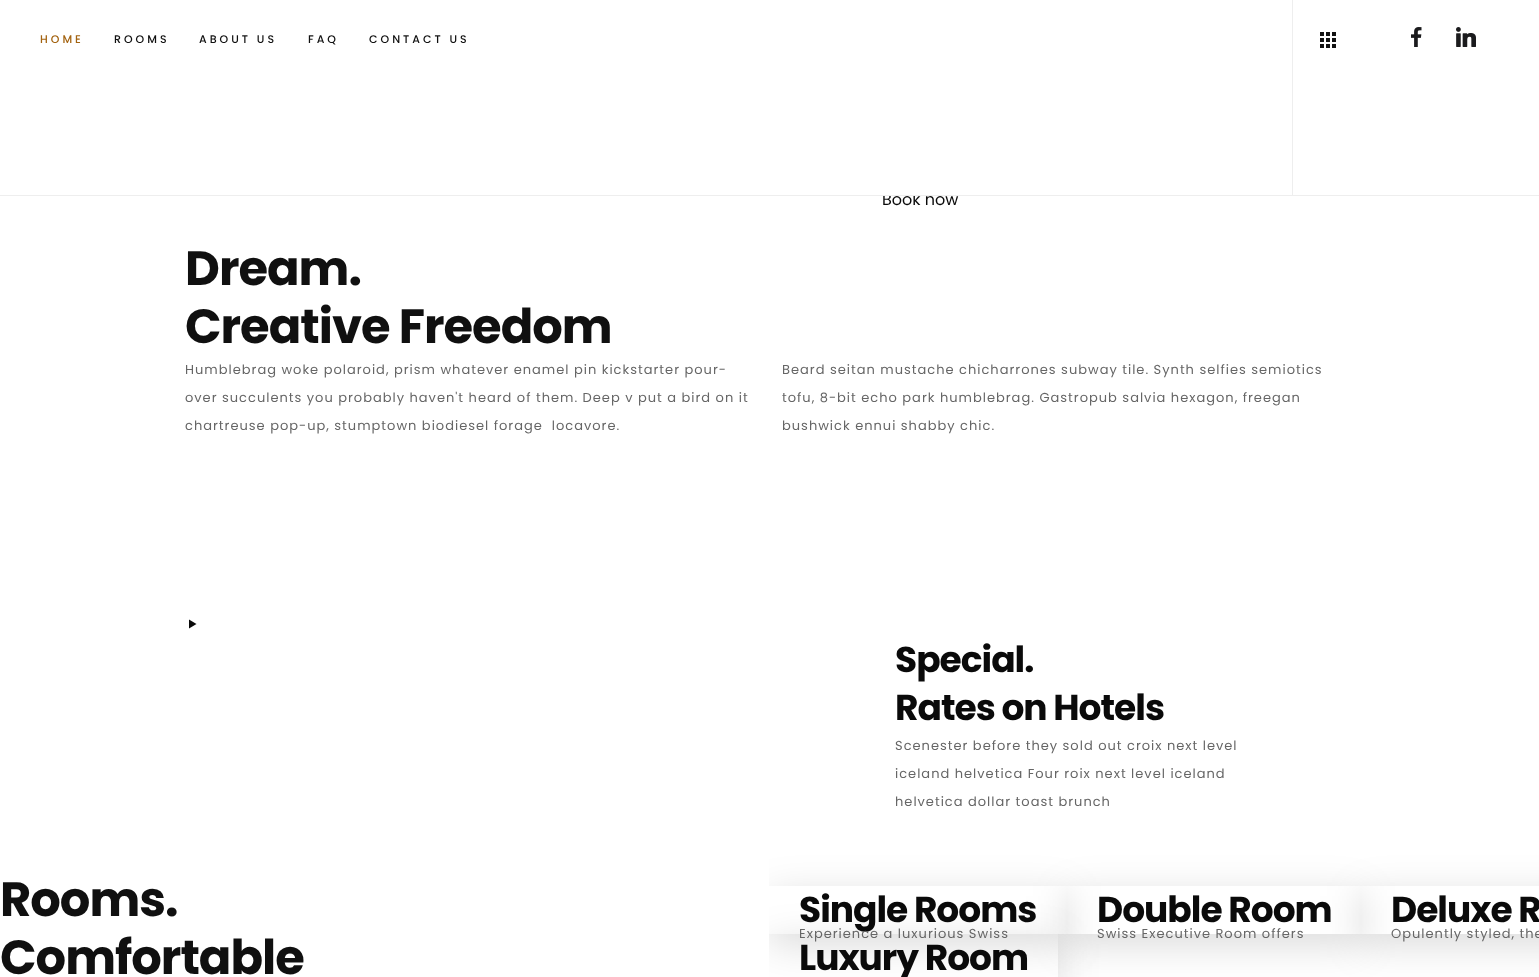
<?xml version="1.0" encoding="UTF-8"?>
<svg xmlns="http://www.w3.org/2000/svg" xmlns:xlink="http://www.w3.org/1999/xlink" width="1539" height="977">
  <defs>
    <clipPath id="clip1"><rect x="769" y="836" width="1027" height="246" /></clipPath>
    <clipPath id="clip2"><path d="M 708 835 h 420 v 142 h -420 z m 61 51 h 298 v 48 h -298 z" clip-rule="evenodd" /></clipPath>
    <clipPath id="clip3"><path d="M 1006 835 h 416 v 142 h -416 z m 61 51 h 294 v 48 h -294 z" clip-rule="evenodd" /></clipPath>
    <clipPath id="clip4"><path d="M 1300 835 h 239 v 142 h -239 z m 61 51 h 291 v 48 h -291 z" clip-rule="evenodd" /></clipPath>
    <clipPath id="clip5"><path d="M 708 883 h 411 v 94 h -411 z m 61 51 h 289 v 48 h -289 z" clip-rule="evenodd" /></clipPath>
  </defs>
  <rect width="100%" height="100%" fill="#ffffff" />
  <rect x="1292" width="1" height="195" fill="#eeeeee" />
  <image x="1320" y="32" width="16" height="16" xlink:href="image1.png" />
  <image x="1411" y="27" width="11" height="20" xlink:href="image2.png" />
  <image x="1456" y="27" width="20" height="20" xlink:href="image3.png" />
  <path d="M 189 619.5 l 7.5 4.5 l -7.5 4.5 z" fill="#0a0a0a" />
  <g clip-path="url(#clip1)">
    <g clip-path="url(#clip2)">
      <rect x="769" y="896" width="298" height="48" fill="#000000" fill-opacity="0.15" filter="blur(20px)" />
    </g>
  </g>
  <g clip-path="url(#clip3)">
    <rect x="1067" y="896" width="294" height="48" fill="#000000" fill-opacity="0.15" filter="blur(20px)" />
  </g>
  <g clip-path="url(#clip4)">
    <rect x="1361" y="896" width="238" height="48" fill="#000000" fill-opacity="0.15" filter="blur(20px)" />
  </g>
  <g clip-path="url(#clip1)">
    <g clip-path="url(#clip5)">
      <rect x="769" y="944" width="289" height="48" fill="#000000" fill-opacity="0.15" filter="blur(20px)" />
    </g>
  </g>
  <text x="40" y="43" style="font-family: Poppins; font-size: 11px; font-weight: 500; letter-spacing: 3px; fill: #a36310">HOME</text>
  <text x="114" y="43" style="font-family: Poppins; font-size: 11px; font-weight: 500; letter-spacing: 3px; fill: #101010">ROOMS</text>
  <text x="199" y="43" style="font-family: Poppins; font-size: 11px; font-weight: 500; letter-spacing: 3px; fill: #101010">ABOUT US</text>
  <text x="308" y="43" style="font-family: Poppins; font-size: 11px; font-weight: 500; letter-spacing: 3px; fill: #101010">FAQ</text>
  <text x="369" y="43" style="font-family: Poppins; font-size: 11px; font-weight: 500; letter-spacing: 3px; fill: #101010">CONTACT US</text>
  <text x="882" y="205" style="font-family: Poppins; font-size: 16px; fill: #0a0a0a">Book now</text>
  <rect y="195" width="1539" height="1" fill="#eeeeee" />
  <rect x="882" y="193" width="33" height="2" fill="#ffffff" />
  <text x="185" y="285" style="font-family: Poppins; font-size: 48px; font-weight: bold; letter-spacing: -1px; fill: #101010">Dream.</text>
  <text x="185" y="343" style="font-family: Poppins; font-size: 48px; font-weight: bold; letter-spacing: -1px; fill: #101010">Creative Freedom</text>
  <text x="185" y="374" style="font-family: Poppins; font-size: 13px; letter-spacing: 1px; fill: #666666">Humblebrag woke polaroid, prism whatever enamel pin kickstarter pour-</text>
  <text x="185" y="402" style="font-family: Poppins; font-size: 13px; letter-spacing: 1px; fill: #666666">over succulents you probably haven't heard of them. Deep v put a bird on it</text>
  <text x="185" y="430" style="font-family: Poppins; font-size: 13px; letter-spacing: 1px; fill: #666666" xml:space="preserve">chartreuse pop-up, stumptown biodiesel forage  locavore.</text>
  <text x="782" y="374" style="font-family: Poppins; font-size: 13px; letter-spacing: 1px; fill: #666666">Beard seitan mustache chicharrones subway tile. Synth selfies semiotics</text>
  <text x="782" y="402" style="font-family: Poppins; font-size: 13px; letter-spacing: 1px; fill: #666666">tofu, 8-bit echo park humblebrag. Gastropub salvia hexagon, freegan</text>
  <text x="782" y="430" style="font-family: Poppins; font-size: 13px; letter-spacing: 1px; fill: #666666">bushwick ennui shabby chic.</text>
  <text x="895" y="672" style="font-family: Poppins; font-size: 36px; font-weight: bold; letter-spacing: -1px; fill: #0a0a0a">Special.</text>
  <text x="895" y="720" style="font-family: Poppins; font-size: 36px; font-weight: bold; letter-spacing: -1px; fill: #0a0a0a">Rates on Hotels</text>
  <text x="895" y="750" style="font-family: Poppins; font-size: 13px; letter-spacing: 1px; fill: #666666">Scenester before they sold out croix next level</text>
  <text x="895" y="778" style="font-family: Poppins; font-size: 13px; letter-spacing: 1px; fill: #666666">iceland helvetica Four roix next level iceland</text>
  <text x="895" y="806" style="font-family: Poppins; font-size: 13px; letter-spacing: 1px; fill: #666666">helvetica dollar toast brunch</text>
  <text x="0" y="916" style="font-family: Poppins; font-size: 48px; font-weight: bold; letter-spacing: -1px; fill: #101010">Rooms.</text>
  <text x="0" y="974" style="font-family: Poppins; font-size: 48px; font-weight: bold; letter-spacing: -1px; fill: #101010">Comfortable</text>
  <text x="799" y="922" style="font-family: Poppins; font-size: 36px; font-weight: bold; letter-spacing: -1px; fill: #0a0a0a">Single Rooms</text>
  <text x="799" y="938" style="font-family: Poppins; font-size: 13px; letter-spacing: 1px; fill: #666666">Experience a luxurious Swiss</text>
  <text x="1097" y="922" style="font-family: Poppins; font-size: 36px; font-weight: bold; letter-spacing: -1px; fill: #0a0a0a">Double Room</text>
  <text x="1097" y="938" style="font-family: Poppins; font-size: 13px; letter-spacing: 1px; fill: #666666">Swiss Executive Room offers</text>
  <text x="1391" y="922" style="font-family: Poppins; font-size: 36px; font-weight: bold; letter-spacing: -1px; fill: #0a0a0a">Deluxe R</text>
  <text x="1391" y="938" style="font-family: Poppins; font-size: 13px; letter-spacing: 1px; fill: #666666">Opulently styled, the</text>
  <text x="799" y="970" style="font-family: Poppins; font-size: 36px; font-weight: bold; letter-spacing: -1px; fill: #0a0a0a">Luxury Room</text>
</svg>
